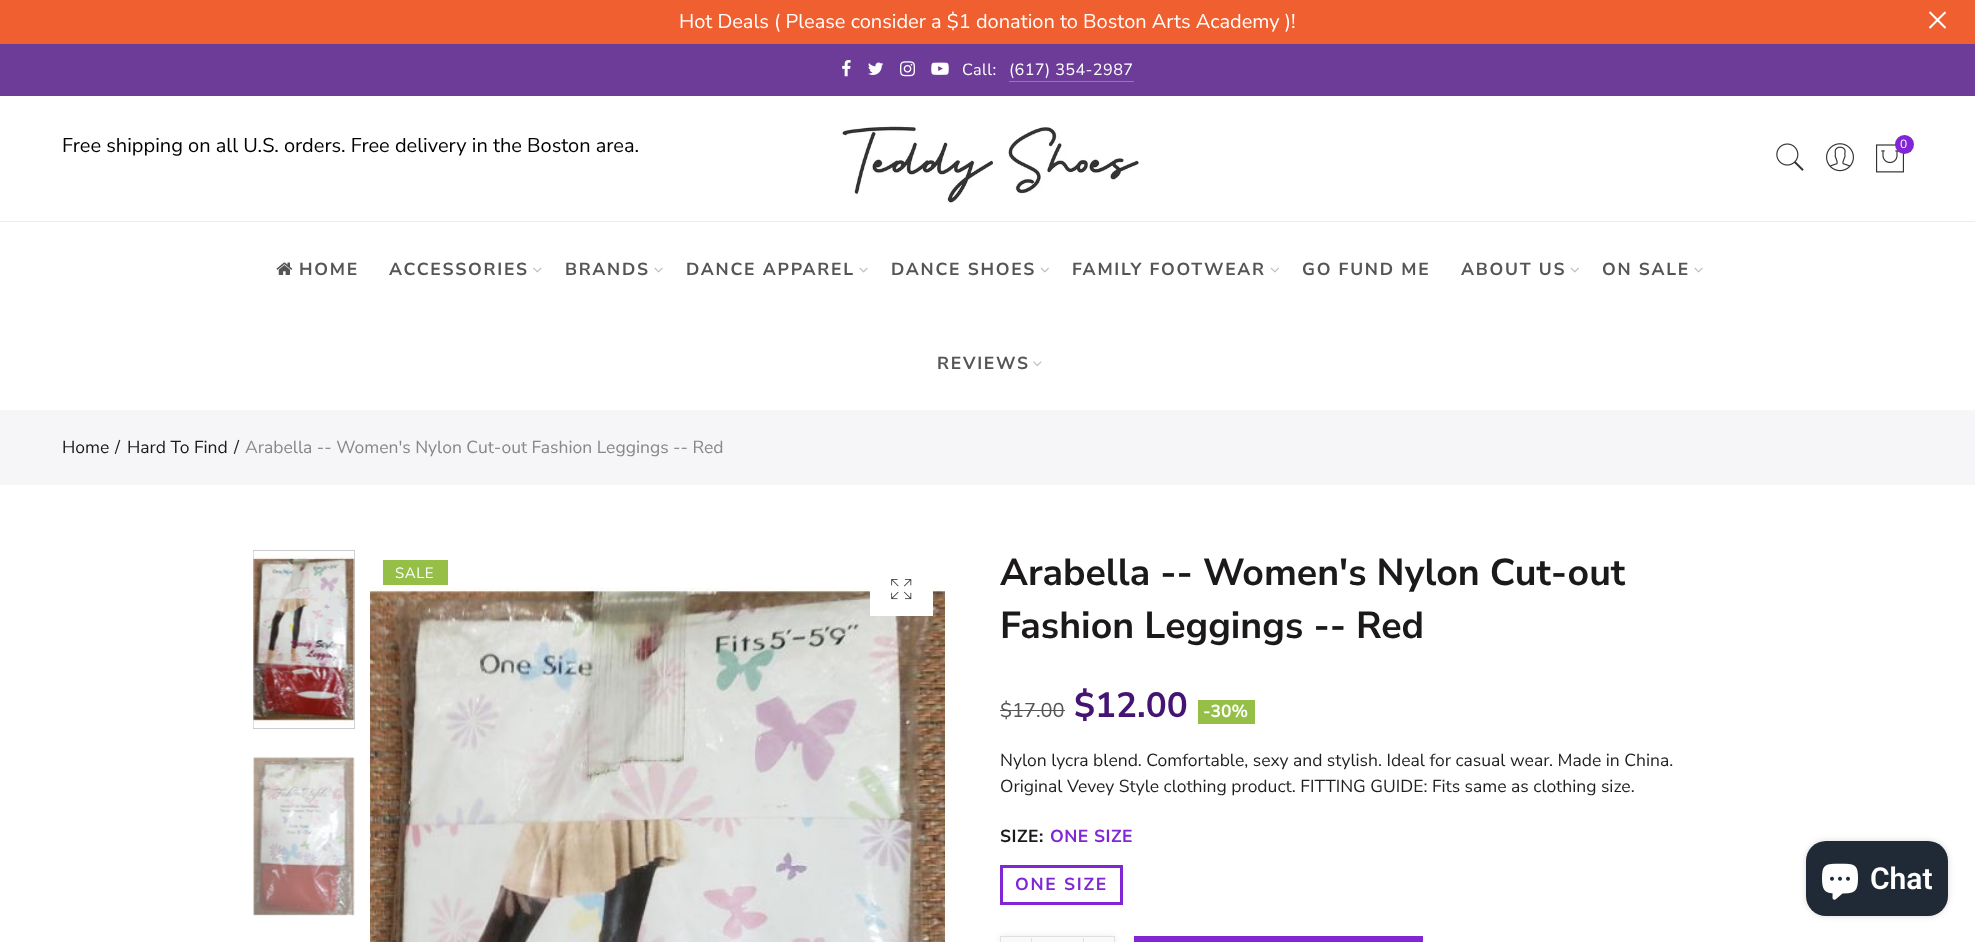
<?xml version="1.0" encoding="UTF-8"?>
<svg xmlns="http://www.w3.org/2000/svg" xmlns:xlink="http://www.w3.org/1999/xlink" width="1975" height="942">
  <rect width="100%" height="100%" fill="#ffffff" />
  <rect width="1975" height="44" fill="#f05f30" />
  <image x="1929" y="11" width="17" height="18" xlink:href="image1.png" />
  <rect y="44" width="1975" height="52" fill="#6c3c98" />
  <image x="842" y="60" width="9" height="17" xlink:href="image2.png" />
  <image x="868" y="62" width="16" height="13" xlink:href="image3.png" />
  <image x="900" y="61" width="15" height="16" xlink:href="image4.png" />
  <image x="931" y="62" width="18" height="13" xlink:href="image5.png" />
  <rect x="1009" y="81" width="125" height="1" fill="#9877b7" />
  <image x="841" y="126" width="298" height="77" xlink:href="image6.png" />
  <image x="1776" y="143" width="28" height="28" xlink:href="image7.png" />
  <image x="1826" y="143" width="28" height="29" xlink:href="image8.png" />
  <image x="1876" y="144" width="28" height="29" xlink:href="image9.png" />
  <circle cx="1904.5" cy="144.5" r="9.5" fill="#8026d4" />
  <rect y="221" width="1975" height="1" fill="#ececec" />
  <image x="276" y="262" width="17" height="13" xlink:href="image10.png" />
  <image x="533" y="267" width="9" height="6" xlink:href="image11.png" />
  <image x="654" y="267" width="9" height="6" xlink:href="image12.png" />
  <image x="859" y="267" width="9" height="6" xlink:href="image12.png" />
  <image x="1040" y="267" width="9" height="6" xlink:href="image13.png" />
  <image x="1270" y="267" width="9" height="6" xlink:href="image13.png" />
  <image x="1570" y="267" width="9" height="6" xlink:href="image13.png" />
  <image x="1694" y="267" width="9" height="6" xlink:href="image12.png" />
  <image x="1033" y="361" width="9" height="6" xlink:href="image14.png" />
  <rect y="410" width="1975" height="75" fill="#f6f6f8" />
  <rect x="253.5" y="550.5" width="101" height="178" fill="none" stroke="#cccccc" />
  <image x="253" y="551" width="102" height="177" xlink:href="image15.png" />
  <image x="253" y="756" width="102" height="161" xlink:href="image16.png" />
  <rect x="383" y="560" width="65" height="25" fill="#95bf47" />
  <image x="370" y="587" width="575" height="355" xlink:href="image18.png" />
  <rect x="870" y="587" width="63" height="29" fill="#ffffff" />
  <image x="891" y="579" width="21" height="21" xlink:href="image17.png" />
  <rect x="1000" y="710" width="65" height="1" fill="#555555" />
  <rect x="1198" y="700" width="57" height="24" fill="#95bf47" />
  <rect x="1001.5" y="866.5" width="120" height="37" fill="none" stroke="#8026d4" stroke-width="3" />
  <rect x="1000" y="936" width="115" height="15" fill="#000000" fill-opacity="0.08" filter="blur(3px)" />
  <rect x="1000.5" y="936.5" width="114" height="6" fill="#f9f9f9" stroke="#e0e0e0" />
  <rect x="1031" y="938" width="1" height="4" fill="#e0e0e0" />
  <rect x="1083" y="938" width="1" height="4" fill="#e0e0e0" />
  <rect x="1134" y="936" width="289" height="6" fill="#8026d4" />
  <rect x="1806" y="841" width="142" height="75" rx="20" fill="#000000" fill-opacity="0.15" filter="blur(3px)" />
  <rect x="1806" y="841" width="142" height="75" rx="20" fill="#202a36" />
  <image x="1822" y="863" width="36" height="37" xlink:href="image19.png" />
  <text x="679" y="28" style="font-family: Nunito Sans; font-size: 20px; fill: #ffffff">Hot Deals ( Please consider a $1 donation to Boston Arts Academy )!</text>
  <text x="962" y="75" style="font-family: Nunito Sans; font-size: 16.25px; letter-spacing: 0.4px; fill: #ffffff">Call:</text>
  <text x="1009" y="75" style="font-family: Nunito Sans; font-size: 16.25px; letter-spacing: 0.4px; fill: #ffffff">(617) 354-2987</text>
  <text x="62" y="152" style="font-family: Nunito Sans; font-size: 20px; fill: #000000">Free shipping on all U.S. orders. Free delivery in the Boston area.</text>
  <text x="1900" y="148" style="font-family: Nunito Sans; font-size: 12px; fill: #ffffff">0</text>
  <text x="299" y="275" style="font-family: Nunito Sans; font-size: 17.5px; font-weight: bold; letter-spacing: 1.75px; fill: #555555">HOME</text>
  <text x="389" y="275" style="font-family: Nunito Sans; font-size: 17.5px; font-weight: bold; letter-spacing: 1.75px; fill: #555555">ACCESSORIES</text>
  <text x="565" y="275" style="font-family: Nunito Sans; font-size: 17.5px; font-weight: bold; letter-spacing: 1.75px; fill: #555555">BRANDS</text>
  <text x="686" y="275" style="font-family: Nunito Sans; font-size: 17.5px; font-weight: bold; letter-spacing: 1.75px; fill: #555555">DANCE APPAREL</text>
  <text x="891" y="275" style="font-family: Nunito Sans; font-size: 17.5px; font-weight: bold; letter-spacing: 1.75px; fill: #555555">DANCE SHOES</text>
  <text x="1072" y="275" style="font-family: Nunito Sans; font-size: 17.5px; font-weight: bold; letter-spacing: 1.75px; fill: #555555">FAMILY FOOTWEAR</text>
  <text x="1302" y="275" style="font-family: Nunito Sans; font-size: 17.5px; font-weight: bold; letter-spacing: 1.75px; fill: #555555">GO FUND ME</text>
  <text x="1461" y="275" style="font-family: Nunito Sans; font-size: 17.5px; font-weight: bold; letter-spacing: 1.75px; fill: #555555">ABOUT US</text>
  <text x="1602" y="275" style="font-family: Nunito Sans; font-size: 17.5px; font-weight: bold; letter-spacing: 1.75px; fill: #555555">ON SALE</text>
  <text x="937" y="369" style="font-family: Nunito Sans; font-size: 17.5px; font-weight: bold; letter-spacing: 1.75px; fill: #555555">REVIEWS</text>
  <text x="62" y="453" style="font-family: Nunito Sans; font-size: 17.5px; fill: #1b1919">Home</text>
  <text x="115" y="453" style="font-family: Nunito Sans; font-size: 17.5px; fill: #1b1919">/</text>
  <text x="127" y="453" style="font-family: Nunito Sans; font-size: 17.5px; fill: #1b1919">Hard To Find</text>
  <text x="234" y="453" style="font-family: Nunito Sans; font-size: 17.5px; fill: #1b1919">/</text>
  <text x="245" y="453" style="font-family: Nunito Sans; font-size: 17.5px; fill: #878787">Arabella -- Women's Nylon Cut-out Fashion Leggings -- Red</text>
  <text x="395" y="578" style="font-family: Nunito Sans; font-size: 15px; letter-spacing: 0.5px; fill: #ffffff">SALE</text>
  <text x="1000" y="585" style="font-family: Nunito Sans; font-size: 37.5px; font-weight: bold; fill: #1b1919">Arabella -- Women's Nylon Cut-out</text>
  <text x="1000" y="638" style="font-family: Nunito Sans; font-size: 37.5px; font-weight: bold; fill: #1b1919">Fashion Leggings -- Red</text>
  <text x="1000" y="717" style="font-family: Nunito Sans; font-size: 20px; fill: #555555">$17.00</text>
  <text x="1074" y="717" style="font-family: Nunito Sans; font-size: 35px; font-weight: bold; fill: #451372">$12.00</text>
  <text x="1203" y="717" style="font-family: Nunito Sans; font-size: 17.5px; font-weight: bold; fill: #ffffff">-30%</text>
  <text x="1000" y="766" style="font-family: Nunito Sans; font-size: 17.5px; fill: #1f1f1f">Nylon lycra blend. Comfortable, sexy and stylish. Ideal for casual wear. Made in China.</text>
  <text x="1000" y="792" style="font-family: Nunito Sans; font-size: 17.5px; fill: #1f1f1f">Original Vevey Style clothing product. FITTING GUIDE: Fits same as clothing size.</text>
  <text x="1000" y="842" style="font-family: Nunito Sans; font-size: 17.5px; font-weight: bold; letter-spacing: 0.5px; fill: #1b1919">SIZE:</text>
  <text x="1050" y="842" style="font-family: Nunito Sans; font-size: 17.5px; font-weight: bold; letter-spacing: 0.5px; fill: #8026d4">ONE SIZE</text>
  <text x="1015" y="890" style="font-family: Nunito Sans; font-size: 17.5px; font-weight: bold; letter-spacing: 1.75px; fill: #8026d4">ONE SIZE</text>
  <text x="1870" y="889" style="font-family: Roboto; font-size: 30px; font-weight: 600; fill: #ffffff">Chat</text>
</svg>
